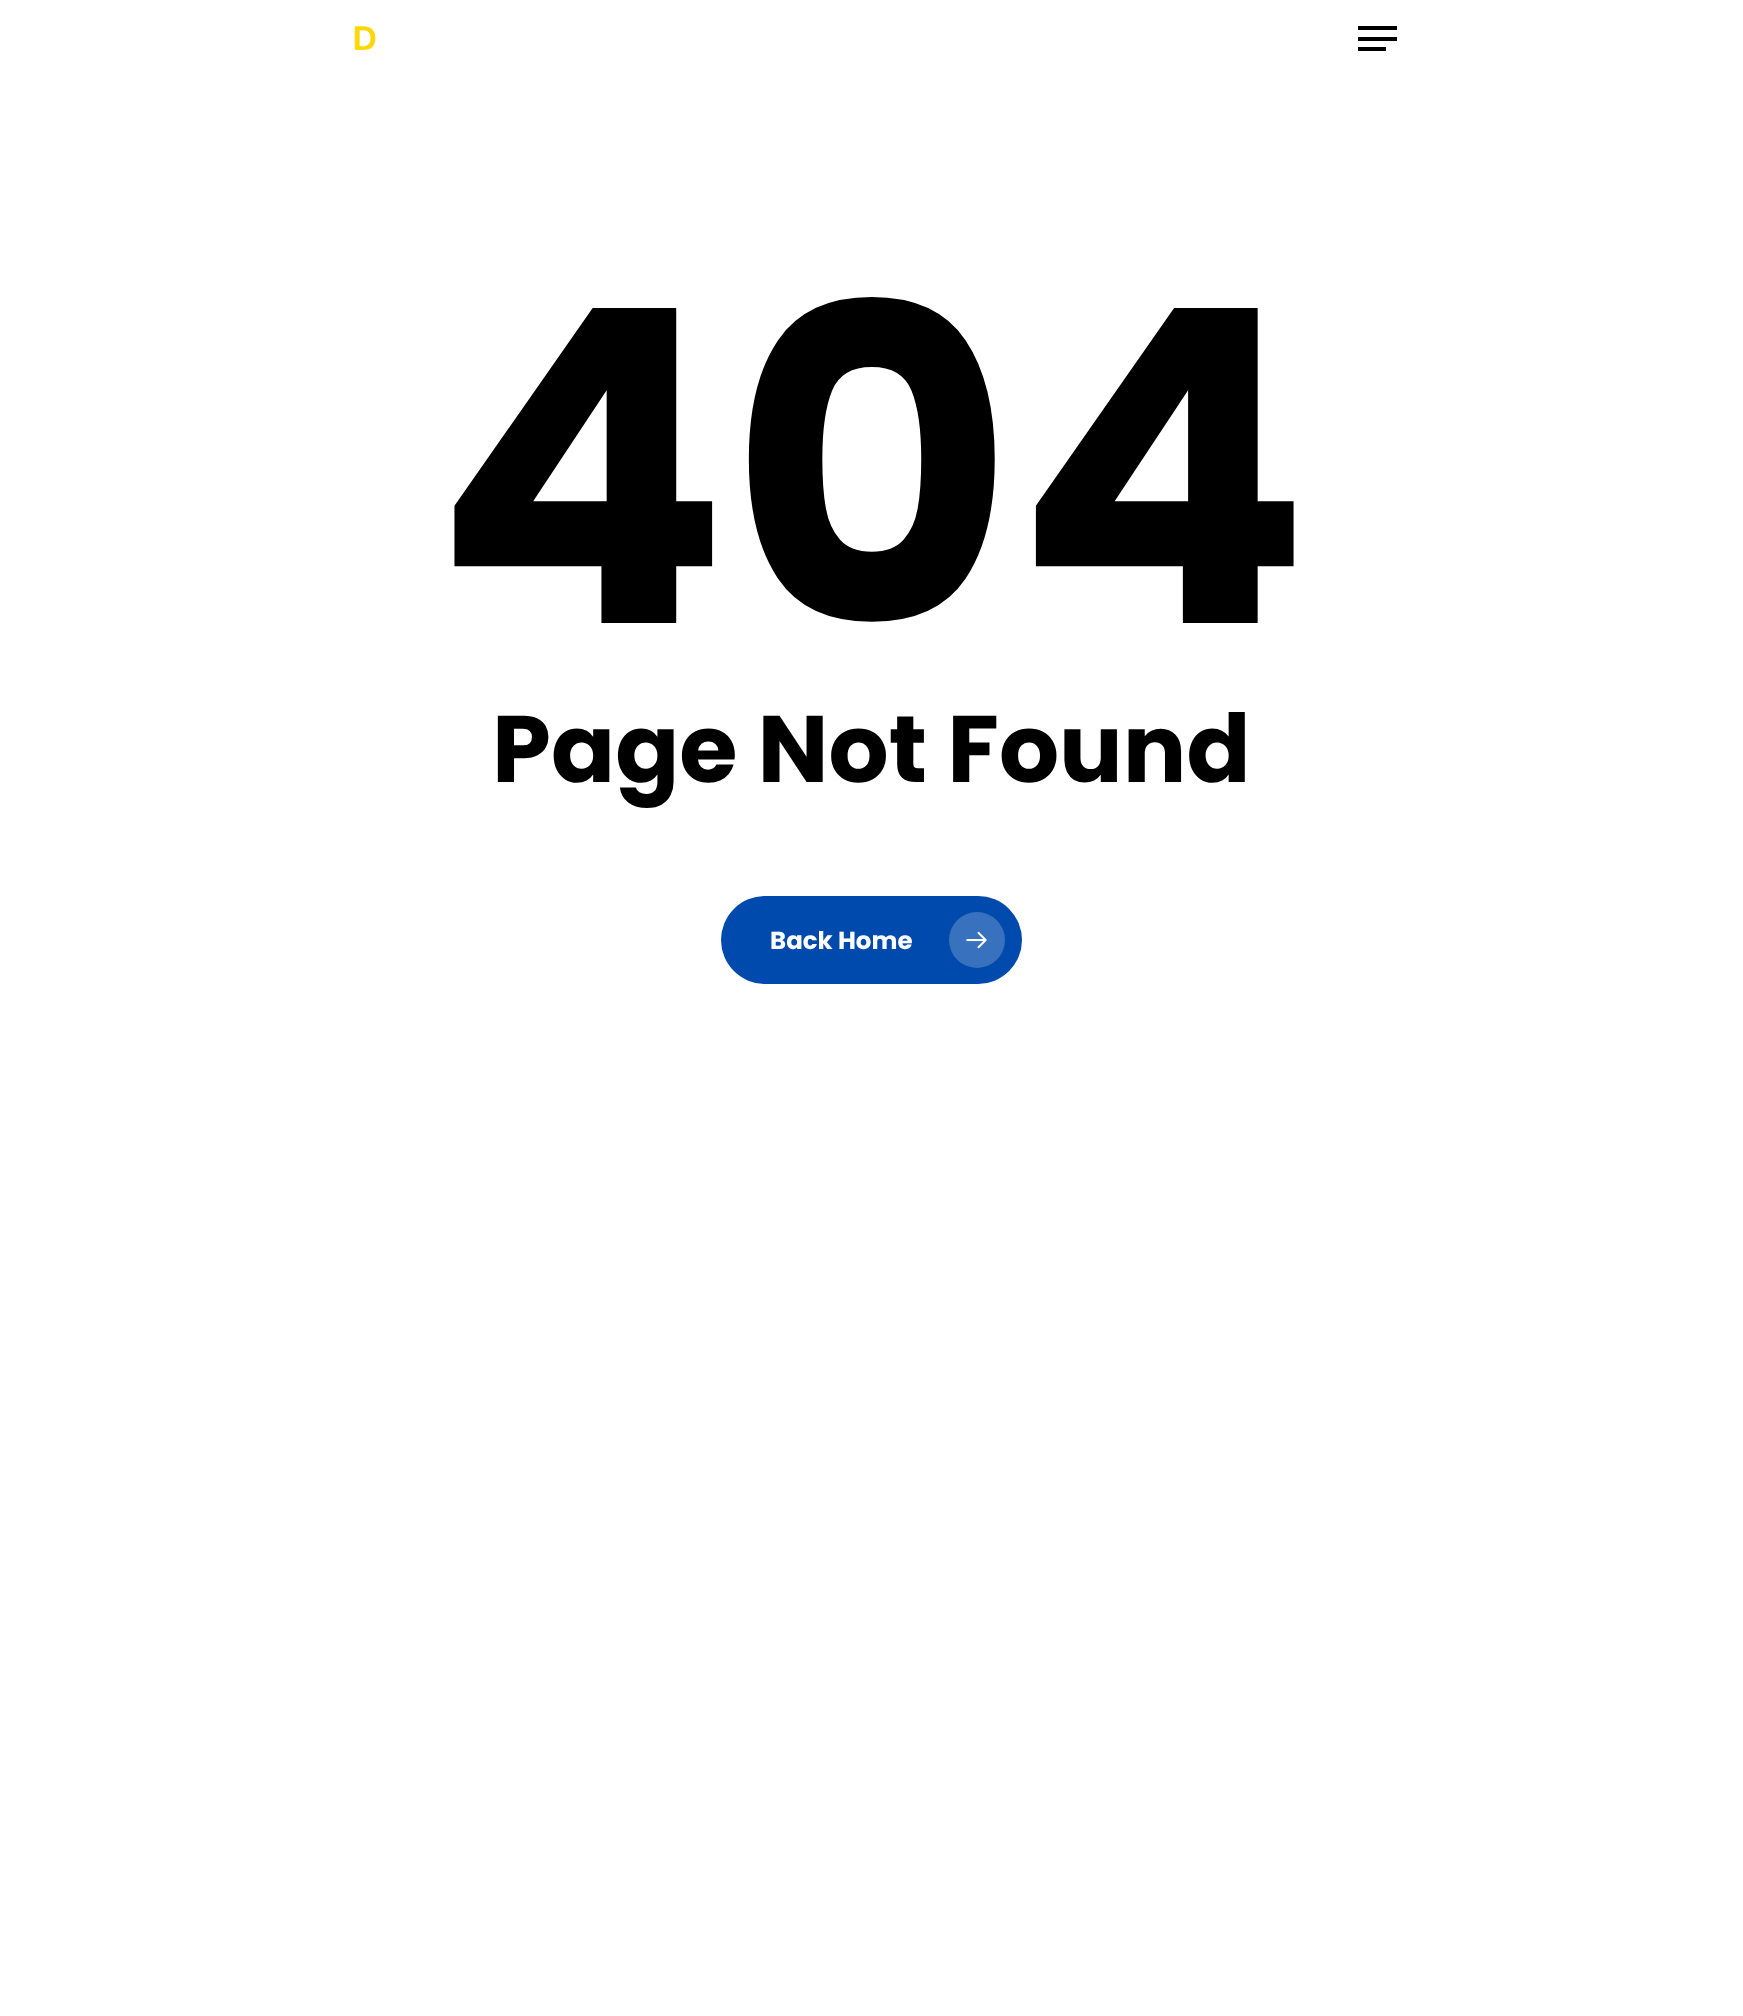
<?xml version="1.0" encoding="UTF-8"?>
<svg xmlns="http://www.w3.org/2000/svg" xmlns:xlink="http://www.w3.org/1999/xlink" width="1743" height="2016">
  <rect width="100%" height="100%" fill="#ffffff" />
  <image x="354" y="26" width="22" height="25" xlink:href="image1.png" />
  <rect x="1358" y="26" width="39" height="4" fill="#000000" />
  <rect x="1358" y="47" width="28" height="4" fill="#000000" />
  <rect x="1358" y="37" width="39" height="4" fill="#000000" />
  <rect x="721" y="896" width="301" height="88" rx="44" fill="#004aad" />
  <circle cx="977" cy="940" r="28" fill="#3872bf" />
  <image x="966" y="931" width="21" height="18" xlink:href="image2.png" />
  <text x="433" y="623" style="font-family: Poppins; font-size: 437.5px; font-weight: bold; fill: #000000">404</text>
  <text x="492" y="782" style="font-family: Poppins; font-size: 94.5px; font-weight: bold; fill: #000000">Page Not Found</text>
  <text x="770" y="949" style="font-family: Poppins; font-size: 24.5px; font-weight: bold; fill: #ffffff">Back Home</text>
</svg>
